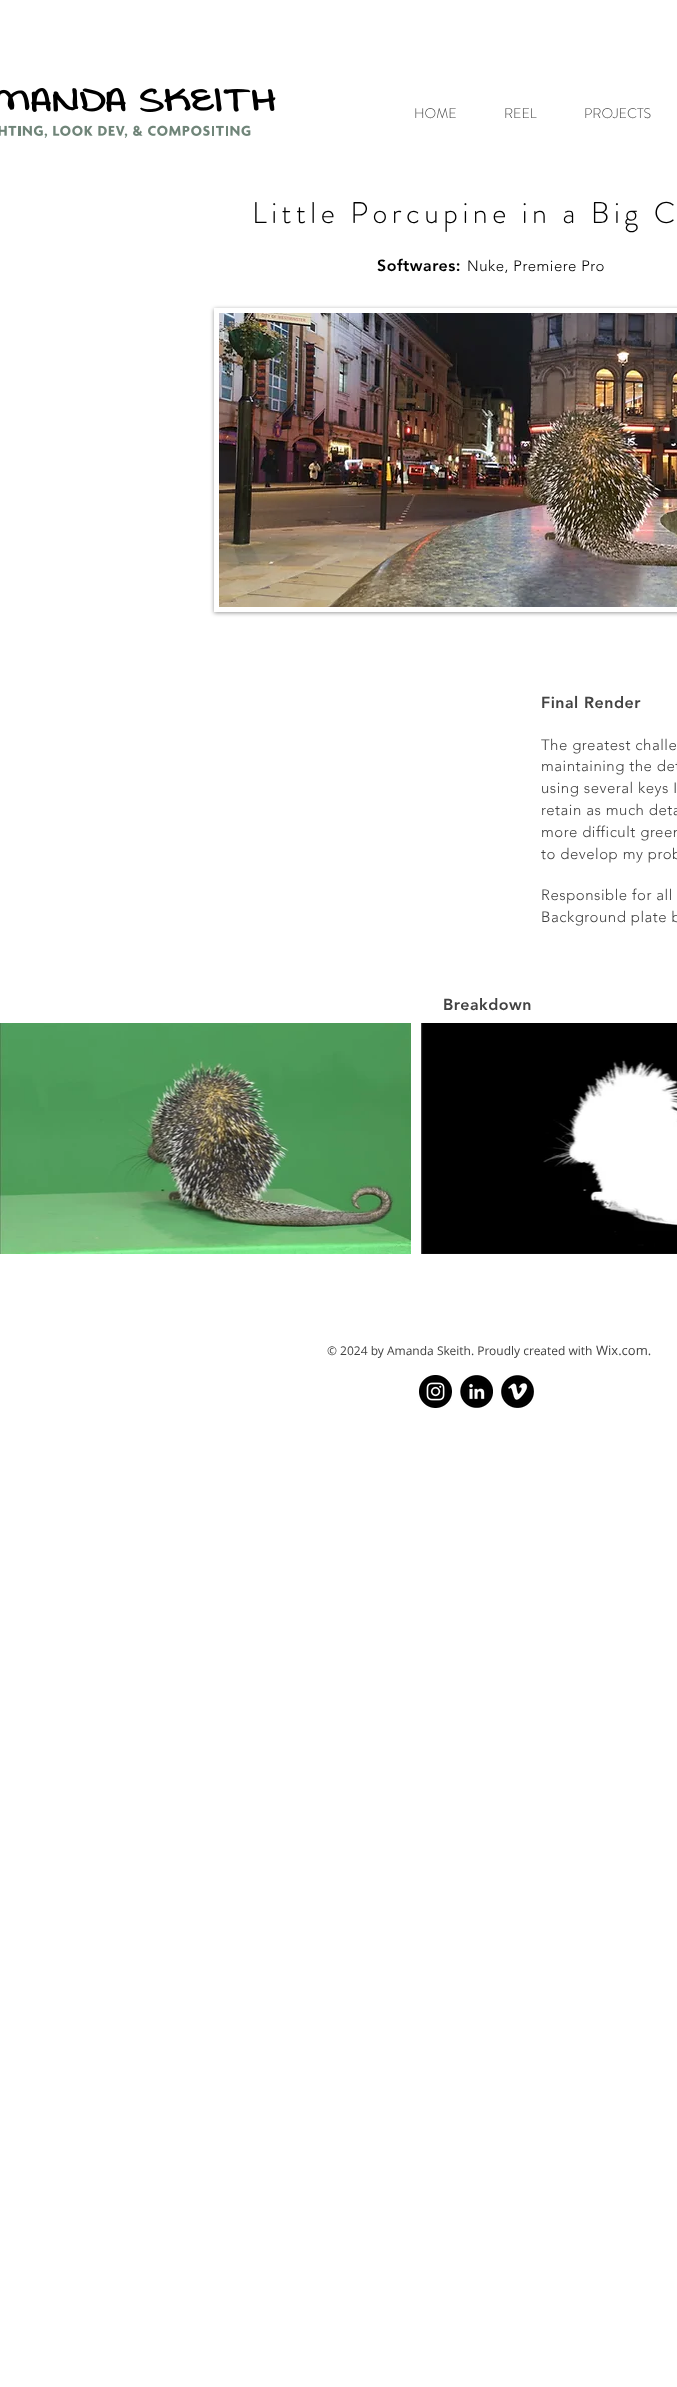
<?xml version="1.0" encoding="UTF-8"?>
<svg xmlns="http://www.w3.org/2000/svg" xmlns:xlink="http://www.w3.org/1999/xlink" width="677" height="2387">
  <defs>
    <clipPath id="clip1"><path d="M 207 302 h 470 v 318 h -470 z m 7 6 h 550 v 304 h -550 z" clip-rule="evenodd" /></clipPath>
  </defs>
  <rect width="100%" height="100%" fill="#ffffff" />
  <image x="0" y="88" width="276" height="50" xlink:href="image1.png" />
  <g clip-path="url(#clip1)">
    <rect x="214" y="309" width="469" height="304" fill="#000000" fill-opacity="0.4" filter="blur(2px)" />
  </g>
  <image x="219" y="313" width="458" height="294" xlink:href="image2.png" />
  <image x="0" y="1023" width="411" height="231" xlink:href="image3.png" />
  <image x="421" y="1023" width="256" height="231" xlink:href="image4.png" />
  <image x="419" y="1375" width="33" height="33" xlink:href="image5.png" />
  <image x="460" y="1375" width="33" height="33" xlink:href="image6.png" />
  <image x="501" y="1375" width="33" height="33" xlink:href="image7.png" />
  <text x="414" y="118" style="font-family: 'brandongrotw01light'; font-size: 14px; font-weight: 300; fill: #424242">HOME</text>
  <text x="504" y="118" style="font-family: 'brandongrotw01light'; font-size: 14px; font-weight: 300; fill: #424242">REEL</text>
  <text x="584" y="118" style="font-family: 'brandongrotw01light'; font-size: 14px; font-weight: 300; fill: #424242">PROJECTS</text>
  <text x="252" y="223" style="font-family: 'brandongrotw01light'; font-size: 30px; font-weight: 300; letter-spacing: 4.5px; fill: #000000">Little Porcupine in a Big C</text>
  <text x="377" y="271" style="font-family: 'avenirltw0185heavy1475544'; font-size: 16px; font-weight: 900; letter-spacing: 0.5px; fill: #000000">Softwares:</text>
  <text x="467" y="271" style="font-family: 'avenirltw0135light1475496'; font-size: 15px; font-weight: 300; letter-spacing: 0.5px; fill: #000000">Nuke, Premiere Pro</text>
  <text x="541" y="708" style="font-family: 'avenirltw0185heavy1475544'; font-size: 16px; font-weight: 900; letter-spacing: 0.5px; fill: #424242">Final Render</text>
  <text x="541" y="750" style="font-family: 'avenirltw0135light1475496'; font-size: 15px; font-weight: 300; letter-spacing: 0.5px; fill: #424242">The greatest challe</text>
  <text x="541" y="771" style="font-family: 'avenirltw0135light1475496'; font-size: 15px; font-weight: 300; letter-spacing: 0.5px; fill: #424242">maintaining the det</text>
  <text x="541" y="793" style="font-family: 'avenirltw0135light1475496'; font-size: 15px; font-weight: 300; letter-spacing: 0.5px; fill: #424242">using several keys I</text>
  <text x="541" y="815" style="font-family: 'avenirltw0135light1475496'; font-size: 15px; font-weight: 300; letter-spacing: 0.5px; fill: #424242">retain as much deta</text>
  <text x="541" y="837" style="font-family: 'avenirltw0135light1475496'; font-size: 15px; font-weight: 300; letter-spacing: 0.5px; fill: #424242">more difficult green</text>
  <text x="541" y="859" style="font-family: 'avenirltw0135light1475496'; font-size: 15px; font-weight: 300; letter-spacing: 0.5px; fill: #424242">to develop my prob</text>
  <text x="541" y="900" style="font-family: 'avenirltw0135light1475496'; font-size: 15px; font-weight: 300; letter-spacing: 0.5px; fill: #424242">Responsible for all</text>
  <text x="541" y="922" style="font-family: 'avenirltw0135light1475496'; font-size: 15px; font-weight: 300; letter-spacing: 0.5px; fill: #424242">Background plate b</text>
  <text x="443" y="1010" style="font-family: 'avenirltw0185heavy1475544'; font-size: 16px; font-weight: 900; letter-spacing: 0.5px; fill: #424242">Breakdown</text>
  <text x="327" y="1355" style="font-family: Open Sans; font-size: 12px; fill: #424242">© 2024 by Amanda Skeith. Proudly created with</text>
  <text x="596" y="1355" style="font-family: Open Sans; font-size: 13px; fill: #424242">Wix.com.</text>
</svg>
